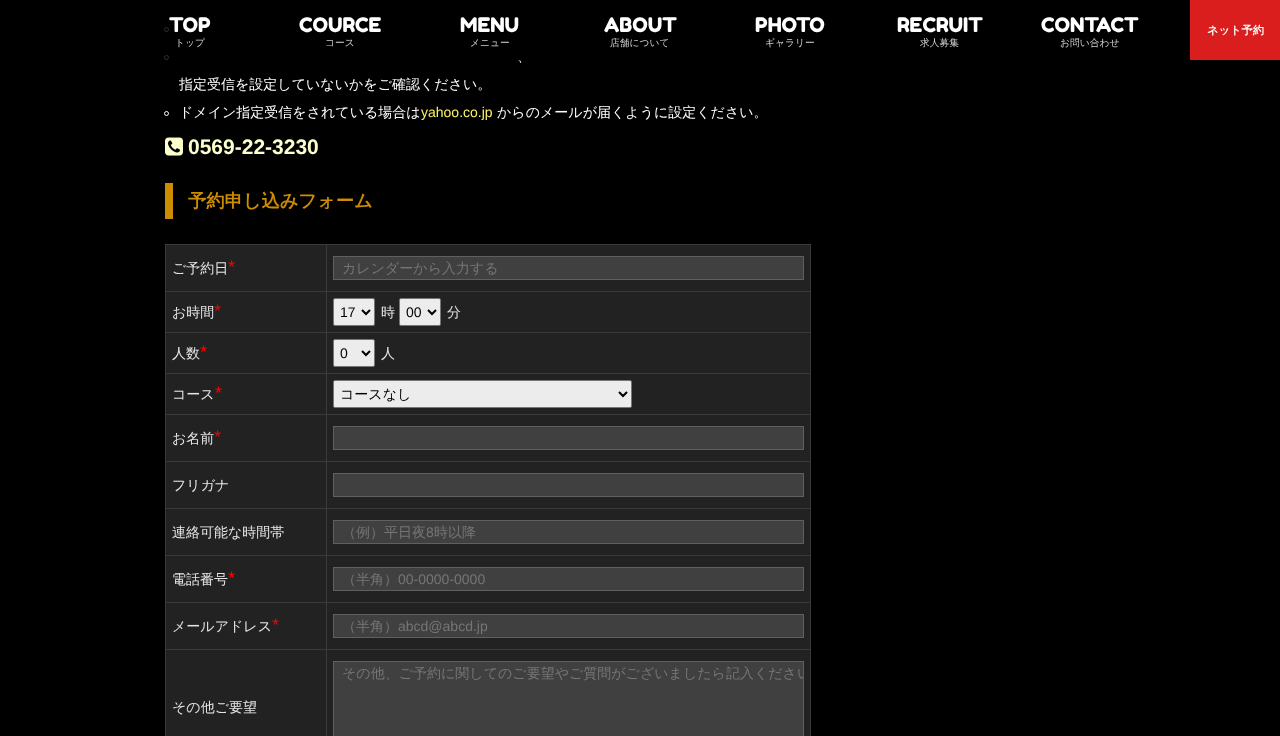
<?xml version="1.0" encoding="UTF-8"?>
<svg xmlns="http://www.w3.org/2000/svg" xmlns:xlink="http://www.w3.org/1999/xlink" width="1280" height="736">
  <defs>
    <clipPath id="clip1"><rect x="334" y="662" width="469" height="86" /></clipPath>
  </defs>
  <rect width="100%" height="100%" fill="#000000" />
  <rect x="1190" width="90" height="60" fill="#da1d1d" />
  <circle cx="166.5" cy="29.5" r="2" fill="none" stroke="#ffffff" />
  <circle cx="166.5" cy="57.5" r="2" fill="none" stroke="#ffffff" />
  <circle cx="166.5" cy="113.5" r="2" fill="none" stroke="#ffffff" />
  <image x="165" y="137" width="18" height="19" xlink:href="image1.png" />
  <rect x="165" y="183" width="8" height="36" fill="#cc8d00" />
  <rect x="166" y="245" width="160" height="46" fill="#222222" />
  <rect x="326" y="244" width="485" height="1" fill="#3b3939" />
  <rect x="326" y="291" width="485" height="1" fill="#3b3939" />
  <rect x="326" y="332" width="485" height="1" fill="#3b3939" />
  <rect x="326" y="373" width="485" height="1" fill="#3b3939" />
  <rect x="326" y="414" width="485" height="1" fill="#3b3939" />
  <rect x="326" y="461" width="485" height="1" fill="#3b3939" />
  <rect x="326" y="508" width="485" height="1" fill="#3b3939" />
  <rect x="326" y="555" width="485" height="1" fill="#3b3939" />
  <rect x="326" y="602" width="485" height="1" fill="#3b3939" />
  <rect x="326" y="649" width="485" height="1" fill="#3b3939" />
  <rect x="326" y="649" width="1" height="87" fill="#3b3939" />
  <rect x="165" y="649" width="162" height="1" fill="#3b3939" />
  <rect x="326" y="602" width="1" height="48" fill="#3b3939" />
  <rect x="165" y="602" width="162" height="1" fill="#3b3939" />
  <rect x="326" y="555" width="1" height="48" fill="#3b3939" />
  <rect x="165" y="555" width="162" height="1" fill="#3b3939" />
  <rect x="326" y="508" width="1" height="48" fill="#3b3939" />
  <rect x="165" y="508" width="162" height="1" fill="#3b3939" />
  <rect x="326" y="461" width="1" height="48" fill="#3b3939" />
  <rect x="165" y="461" width="162" height="1" fill="#3b3939" />
  <rect x="326" y="414" width="1" height="48" fill="#3b3939" />
  <rect x="165" y="414" width="162" height="1" fill="#3b3939" />
  <rect x="326" y="373" width="1" height="42" fill="#3b3939" />
  <rect x="165" y="373" width="162" height="1" fill="#3b3939" />
  <rect x="326" y="332" width="1" height="42" fill="#3b3939" />
  <rect x="165" y="332" width="162" height="1" fill="#3b3939" />
  <rect x="326" y="291" width="1" height="42" fill="#3b3939" />
  <rect x="165" y="291" width="162" height="1" fill="#3b3939" />
  <rect x="326" y="244" width="1" height="48" fill="#3b3939" />
  <rect x="165" y="244" width="162" height="1" fill="#3b3939" />
  <rect x="165" y="649" width="1" height="87" fill="#3b3939" />
  <rect x="165" y="602" width="1" height="48" fill="#3b3939" />
  <rect x="165" y="555" width="1" height="48" fill="#3b3939" />
  <rect x="165" y="508" width="1" height="48" fill="#3b3939" />
  <rect x="165" y="461" width="1" height="48" fill="#3b3939" />
  <rect x="165" y="414" width="1" height="48" fill="#3b3939" />
  <rect x="165" y="373" width="1" height="42" fill="#3b3939" />
  <rect x="165" y="332" width="1" height="42" fill="#3b3939" />
  <rect x="165" y="291" width="1" height="42" fill="#3b3939" />
  <rect x="165" y="244" width="1" height="48" fill="#3b3939" />
  <rect x="327" y="245" width="483" height="46" fill="#222222" />
  <rect x="810" y="649" width="1" height="87" fill="#3b3939" />
  <rect x="810" y="602" width="1" height="48" fill="#3b3939" />
  <rect x="810" y="555" width="1" height="48" fill="#3b3939" />
  <rect x="810" y="508" width="1" height="48" fill="#3b3939" />
  <rect x="810" y="461" width="1" height="48" fill="#3b3939" />
  <rect x="810" y="414" width="1" height="48" fill="#3b3939" />
  <rect x="810" y="373" width="1" height="42" fill="#3b3939" />
  <rect x="810" y="332" width="1" height="42" fill="#3b3939" />
  <rect x="810" y="291" width="1" height="42" fill="#3b3939" />
  <rect x="810" y="244" width="1" height="48" fill="#3b3939" />
  <rect x="333.5" y="256.5" width="470" height="23" fill="#404040" stroke="#606060" />
  <rect x="166" y="292" width="160" height="40" fill="#222222" />
  <rect x="327" y="292" width="483" height="40" fill="#222222" />
  <rect x="333.5" y="298.5" width="41" height="27" rx="1.5" fill="#ececec" stroke="#767676" />
  <path d="M 362 310 l 4 4 l 4 -4" fill="none" stroke="#000000" stroke-width="2" />
  <rect x="399.5" y="298.5" width="41" height="27" rx="1.5" fill="#ececec" stroke="#767676" />
  <path d="M 428 310 l 4 4 l 4 -4" fill="none" stroke="#000000" stroke-width="2" />
  <rect x="166" y="333" width="160" height="40" fill="#222222" />
  <rect x="327" y="333" width="483" height="40" fill="#222222" />
  <rect x="333.5" y="339.5" width="41" height="27" rx="1.5" fill="#ececec" stroke="#767676" />
  <path d="M 362 351 l 4 4 l 4 -4" fill="none" stroke="#000000" stroke-width="2" />
  <rect x="166" y="374" width="160" height="40" fill="#222222" />
  <rect x="327" y="374" width="483" height="40" fill="#222222" />
  <rect x="333.5" y="380.5" width="298" height="27" rx="1.5" fill="#ececec" stroke="#767676" />
  <path d="M 619 392 l 4 4 l 4 -4" fill="none" stroke="#000000" stroke-width="2" />
  <rect x="166" y="415" width="160" height="46" fill="#222222" />
  <rect x="327" y="415" width="483" height="46" fill="#222222" />
  <rect x="333.5" y="426.5" width="470" height="23" fill="#404040" stroke="#606060" />
  <rect x="166" y="462" width="160" height="46" fill="#222222" />
  <rect x="327" y="462" width="483" height="46" fill="#222222" />
  <rect x="333.5" y="473.5" width="470" height="23" fill="#404040" stroke="#606060" />
  <rect x="166" y="509" width="160" height="46" fill="#222222" />
  <rect x="327" y="509" width="483" height="46" fill="#222222" />
  <rect x="333.5" y="520.5" width="470" height="23" fill="#404040" stroke="#606060" />
  <rect x="166" y="556" width="160" height="46" fill="#222222" />
  <rect x="327" y="556" width="483" height="46" fill="#222222" />
  <rect x="333.5" y="567.5" width="470" height="23" fill="#404040" stroke="#606060" />
  <rect x="166" y="603" width="160" height="46" fill="#222222" />
  <rect x="327" y="603" width="483" height="46" fill="#222222" />
  <rect x="333.5" y="614.5" width="470" height="23" fill="#404040" stroke="#606060" />
  <rect x="327" y="650" width="483" height="86" fill="#222222" />
  <rect x="333.5" y="661.5" width="470" height="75" fill="#404040" stroke="#606060" />
  <rect x="166" y="650" width="160" height="86" fill="#222222" />
  <text x="604" y="32" style="font-family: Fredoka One; font-size: 20px; fill: #ffffff">ABOUT</text>
  <text x="610" y="46" style="font-family: WenQuanYi Zen Hei; font-size: 9.75px; font-weight: 500; fill: #d0d0d0">店舗について</text>
  <text x="755" y="32" style="font-family: Fredoka One; font-size: 20px; fill: #ffffff">PHOTO</text>
  <text x="765" y="46" style="font-family: WenQuanYi Zen Hei; font-size: 9.75px; font-weight: 500; fill: #d0d0d0">ギャラリー</text>
  <text x="897" y="32" style="font-family: Fredoka One; font-size: 20px; fill: #ffffff">RECRUIT</text>
  <text x="920" y="46" style="font-family: WenQuanYi Zen Hei; font-size: 9.75px; font-weight: 500; fill: #d0d0d0">求人募集</text>
  <text x="1041" y="32" style="font-family: Fredoka One; font-size: 20px; fill: #ffffff">CONTACT</text>
  <text x="1060" y="46" style="font-family: WenQuanYi Zen Hei; font-size: 9.75px; font-weight: 500; fill: #d0d0d0">お問い合わせ</text>
  <text x="1207" y="34" style="font-family: WenQuanYi Zen Hei; font-size: 11.25px; font-weight: bold; fill: #ffffff">ネット予約</text>
  <text x="517" y="61" style="font-family: WenQuanYi Zen Hei; font-size: 14px; font-weight: 500; fill: #ffffff">、</text>
  <rect x="164" y="27" width="355" height="33" fill="#000000" fill-opacity="0.82" />
  <text x="470" y="46" style="font-family: WenQuanYi Zen Hei; font-size: 9.75px; font-weight: 500; fill: #d0d0d0">メニュー</text>
  <text x="460" y="32" style="font-family: Fredoka One; font-size: 20px; fill: #ffffff">MENU</text>
  <text x="325" y="46" style="font-family: WenQuanYi Zen Hei; font-size: 9.75px; font-weight: 500; fill: #d0d0d0">コース</text>
  <text x="299" y="32" style="font-family: Fredoka One; font-size: 20px; fill: #ffffff">COURCE</text>
  <text x="175" y="46" style="font-family: WenQuanYi Zen Hei; font-size: 9.75px; font-weight: 500; fill: #d0d0d0">トップ</text>
  <text x="169" y="32" style="font-family: Fredoka One; font-size: 20px; fill: #ffffff">TOP</text>
  <text x="179" y="89" style="font-family: WenQuanYi Zen Hei; font-size: 14px; font-weight: 500; fill: #ffffff">指定受信を設定していないかをご確認ください。</text>
  <text x="179" y="117" style="font-family: WenQuanYi Zen Hei; font-size: 14px; font-weight: 500; fill: #ffffff">ドメイン指定受信をされている場合は</text>
  <text x="421" y="117" style="font-family: Liberation Sans; font-size: 14px; fill: #fcf266">yahoo.co.jp</text>
  <text x="497" y="117" style="font-family: WenQuanYi Zen Hei; font-size: 14px; font-weight: 500; fill: #ffffff">からのメールが届くように設定ください。</text>
  <text x="188" y="154" style="font-family: Liberation Sans; font-size: 21px; font-weight: bold; fill: #fcffcb">0569-22-3230</text>
  <text x="188" y="207" style="font-family: WenQuanYi Zen Hei; font-size: 18.25px; font-weight: bold; fill: #cc8d00">予約申し込みフォーム</text>
  <text x="172" y="273" style="font-family: WenQuanYi Zen Hei; font-size: 14px; font-weight: 500; fill: #e4e4e4">ご予約日</text>
  <text x="228" y="273" style="font-family: Liberation Sans; font-size: 18.25px; fill: #ff0000">*</text>
  <text x="342" y="273" style="font-family: WenQuanYi Zen Hei; font-size: 14px; font-weight: 500; fill: #757575">カレンダーから入力する</text>
  <text x="172" y="317" style="font-family: WenQuanYi Zen Hei; font-size: 14px; font-weight: 500; fill: #e4e4e4">お時間</text>
  <text x="214" y="317" style="font-family: Liberation Sans; font-size: 18.25px; fill: #ff0000">*</text>
  <text x="340" y="317" style="font-family: Liberation Sans; font-size: 14px; fill: #000000">17</text>
  <text x="381" y="317" style="font-family: WenQuanYi Zen Hei; font-size: 14px; font-weight: 500; fill: #e4e4e4">時</text>
  <text x="406" y="317" style="font-family: Liberation Sans; font-size: 14px; fill: #000000">00</text>
  <text x="447" y="317" style="font-family: WenQuanYi Zen Hei; font-size: 14px; font-weight: 500; fill: #e4e4e4">分</text>
  <text x="172" y="358" style="font-family: WenQuanYi Zen Hei; font-size: 14px; font-weight: 500; fill: #e4e4e4">人数</text>
  <text x="200" y="358" style="font-family: Liberation Sans; font-size: 18.25px; fill: #ff0000">*</text>
  <text x="340" y="358" style="font-family: Liberation Sans; font-size: 14px; fill: #000000">0</text>
  <text x="381" y="358" style="font-family: WenQuanYi Zen Hei; font-size: 14px; font-weight: 500; fill: #e4e4e4">人</text>
  <text x="172" y="399" style="font-family: WenQuanYi Zen Hei; font-size: 14px; font-weight: 500; fill: #e4e4e4">コース</text>
  <text x="215" y="399" style="font-family: Liberation Sans; font-size: 18.25px; fill: #ff0000">*</text>
  <text x="340" y="399" style="font-family: WenQuanYi Zen Hei; font-size: 14px; font-weight: 500; fill: #000000">コースなし</text>
  <text x="172" y="443" style="font-family: WenQuanYi Zen Hei; font-size: 14px; font-weight: 500; fill: #e4e4e4">お名前</text>
  <text x="214" y="443" style="font-family: Liberation Sans; font-size: 18.25px; fill: #ff0000">*</text>
  <text x="172" y="490" style="font-family: WenQuanYi Zen Hei; font-size: 14px; font-weight: 500; fill: #e4e4e4">フリガナ</text>
  <text x="172" y="537" style="font-family: WenQuanYi Zen Hei; font-size: 14px; font-weight: 500; fill: #e4e4e4">連絡可能な時間帯</text>
  <text x="342" y="537" style="font-family: WenQuanYi Zen Hei; font-size: 14px; font-weight: 500; fill: #757575">（例）平日夜</text>
  <text x="426" y="537" style="font-family: Liberation Sans; font-size: 14px; fill: #757575">8</text>
  <text x="434" y="537" style="font-family: WenQuanYi Zen Hei; font-size: 14px; font-weight: 500; fill: #757575">時以降</text>
  <text x="172" y="584" style="font-family: WenQuanYi Zen Hei; font-size: 14px; font-weight: 500; fill: #e4e4e4">電話番号</text>
  <text x="228" y="584" style="font-family: Liberation Sans; font-size: 18.25px; fill: #ff0000">*</text>
  <text x="342" y="584" style="font-family: WenQuanYi Zen Hei; font-size: 14px; font-weight: 500; fill: #757575">（半角）</text>
  <text x="398" y="584" style="font-family: Liberation Sans; font-size: 14px; fill: #757575">00-0000-0000</text>
  <text x="172" y="631" style="font-family: WenQuanYi Zen Hei; font-size: 14px; font-weight: 500; fill: #e4e4e4">メールアドレス</text>
  <text x="272" y="631" style="font-family: Liberation Sans; font-size: 18.25px; fill: #ff0000">*</text>
  <text x="342" y="631" style="font-family: WenQuanYi Zen Hei; font-size: 14px; font-weight: 500; fill: #757575">（半角）</text>
  <text x="398" y="631" style="font-family: Liberation Sans; font-size: 14px; fill: #757575">abcd@abcd.jp</text>
  <g clip-path="url(#clip1)">
    <text x="342" y="678" style="font-family: WenQuanYi Zen Hei; font-size: 14px; font-weight: 500; fill: #757575">その他、ご予約に関してのご要望やご質問がございましたら記入ください</text>
  </g>
  <text x="172" y="712" style="font-family: WenQuanYi Zen Hei; font-size: 14px; font-weight: 500; fill: #e4e4e4">その他ご要望</text>
</svg>
